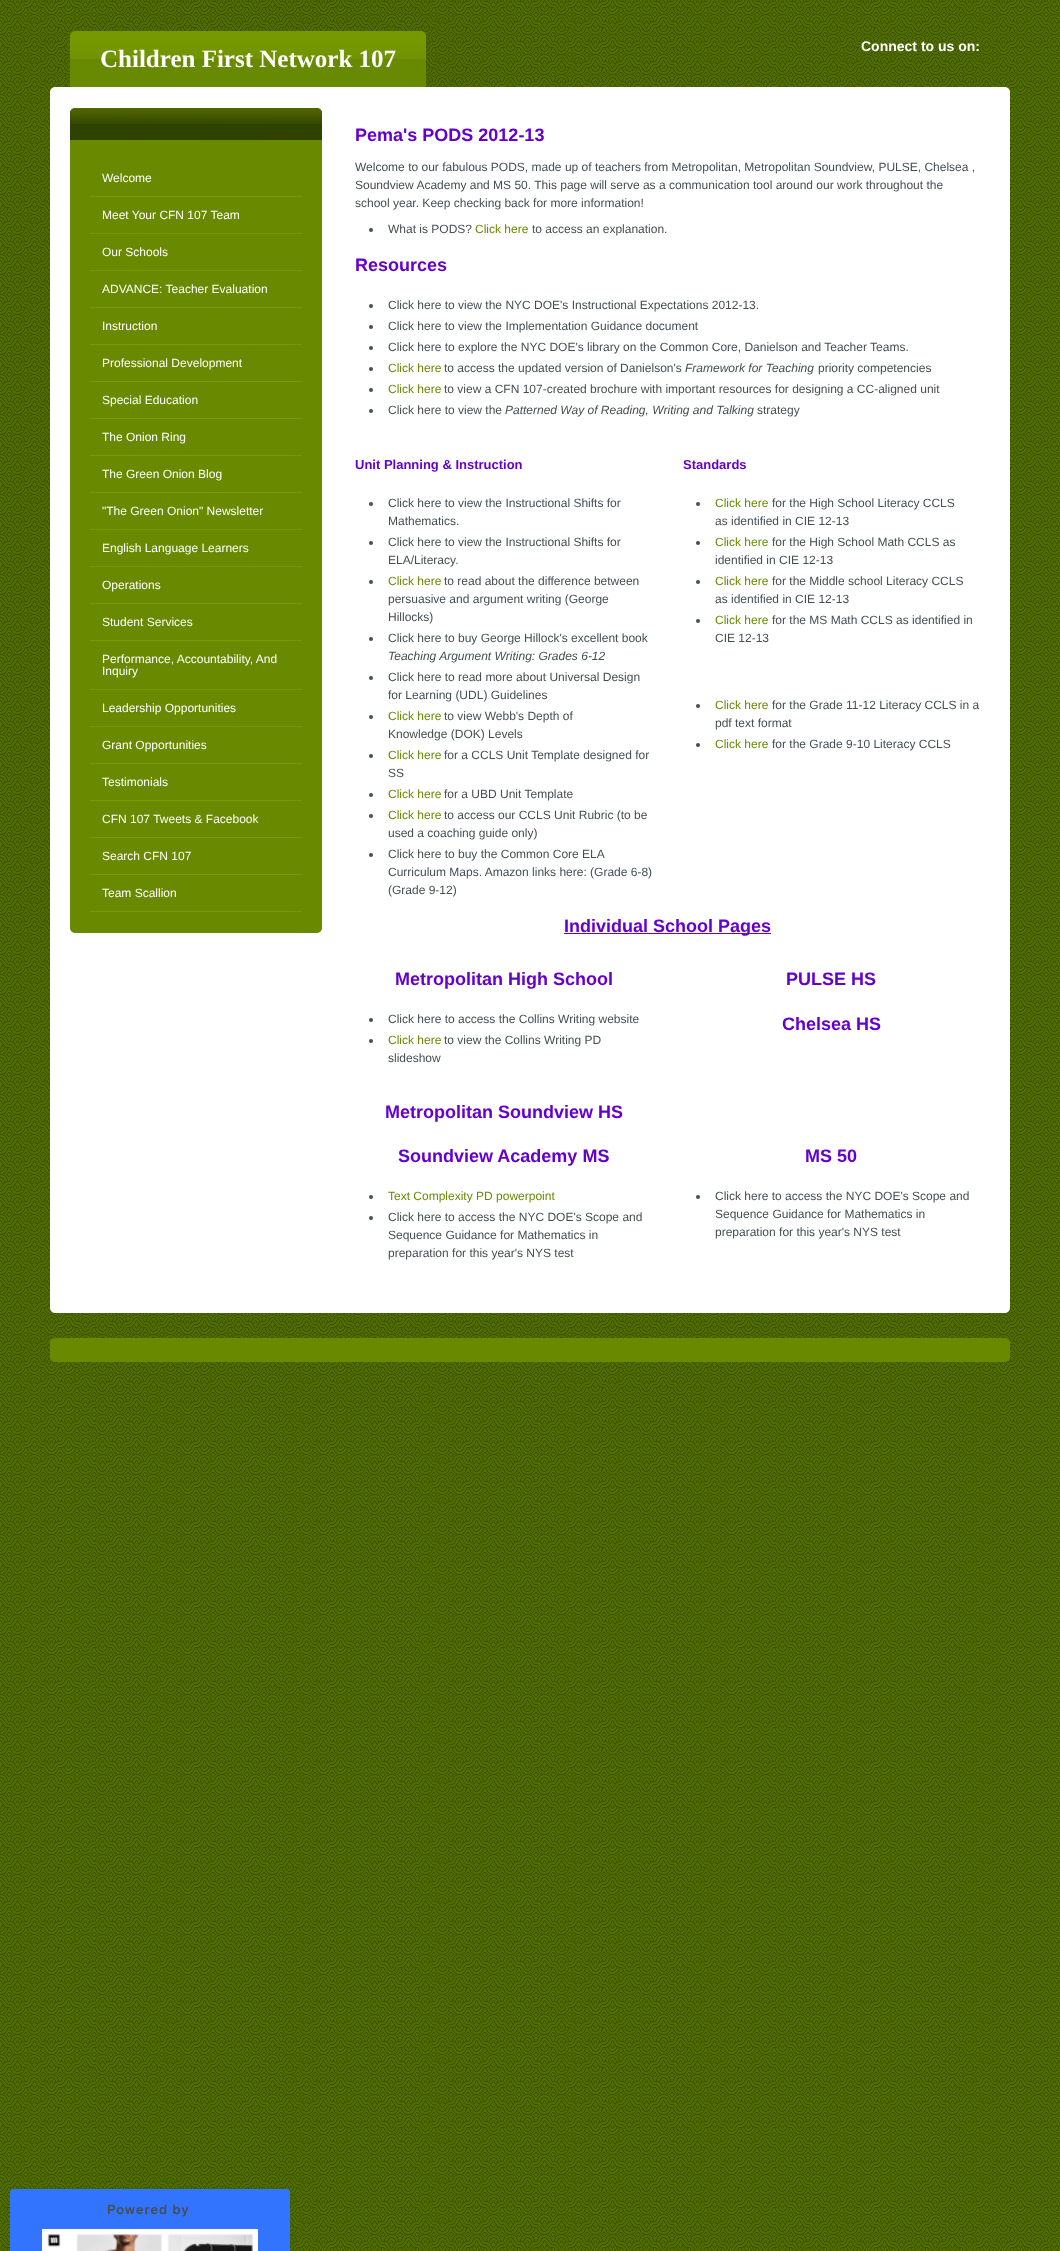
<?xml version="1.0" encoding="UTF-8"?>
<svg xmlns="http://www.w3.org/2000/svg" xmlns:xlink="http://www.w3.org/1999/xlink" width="1060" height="2251">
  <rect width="100%" height="100%" fill="#ffffff" />
  <image x="0" y="0" width="1060" height="2251" xlink:href="image1.png" />
  <image x="70" y="31" width="5" height="56" xlink:href="image2.png" />
  <image x="421" y="31" width="5" height="56" xlink:href="image3.png" />
  <rect x="75" y="59" width="346" height="28" fill="#688a02" />
  <image x="75" y="31" width="346" height="28" xlink:href="image4.png" />
  <image x="50" y="87" width="960" height="6" xlink:href="image5.png" />
  <image x="50" y="1307" width="960" height="6" xlink:href="image6.png" />
  <rect x="50" y="93" width="960" height="1214" fill="#ffffff" />
  <image x="70" y="108" width="252" height="32" xlink:href="image7.png" />
  <image x="70" y="927" width="252" height="6" xlink:href="image8.png" />
  <rect x="70" y="140" width="252" height="787" fill="#688900" />
  <rect x="90" y="196" width="212" height="1" fill="#779900" />
  <rect x="90" y="233" width="212" height="1" fill="#779900" />
  <rect x="90" y="270" width="212" height="1" fill="#779900" />
  <rect x="90" y="307" width="212" height="1" fill="#779900" />
  <rect x="90" y="344" width="212" height="1" fill="#779900" />
  <rect x="90" y="381" width="212" height="1" fill="#779900" />
  <rect x="90" y="418" width="212" height="1" fill="#779900" />
  <rect x="90" y="455" width="212" height="1" fill="#779900" />
  <rect x="90" y="492" width="212" height="1" fill="#779900" />
  <rect x="90" y="529" width="212" height="1" fill="#779900" />
  <rect x="90" y="566" width="212" height="1" fill="#779900" />
  <rect x="90" y="603" width="212" height="1" fill="#779900" />
  <rect x="90" y="640" width="212" height="1" fill="#779900" />
  <rect x="90" y="689" width="212" height="1" fill="#779900" />
  <rect x="90" y="726" width="212" height="1" fill="#779900" />
  <rect x="90" y="763" width="212" height="1" fill="#779900" />
  <rect x="90" y="800" width="212" height="1" fill="#779900" />
  <rect x="90" y="837" width="212" height="1" fill="#779900" />
  <rect x="90" y="874" width="212" height="1" fill="#779900" />
  <rect x="90" y="911" width="212" height="1" fill="#779900" />
  <circle cx="371" cy="230" r="2" fill="#464e54" />
  <circle cx="371" cy="306" r="2" fill="#464e54" />
  <circle cx="371" cy="327" r="2" fill="#464e54" />
  <circle cx="371" cy="348" r="2" fill="#464e54" />
  <circle cx="371" cy="369" r="2" fill="#464e54" />
  <circle cx="371" cy="390" r="2" fill="#464e54" />
  <circle cx="371" cy="411" r="2" fill="#464e54" />
  <circle cx="371" cy="504" r="2" fill="#464e54" />
  <circle cx="371" cy="543" r="2" fill="#464e54" />
  <circle cx="371" cy="582" r="2" fill="#464e54" />
  <circle cx="371" cy="639" r="2" fill="#464e54" />
  <circle cx="371" cy="678" r="2" fill="#464e54" />
  <circle cx="371" cy="717" r="2" fill="#464e54" />
  <circle cx="371" cy="756" r="2" fill="#464e54" />
  <circle cx="371" cy="795" r="2" fill="#464e54" />
  <circle cx="371" cy="816" r="2" fill="#464e54" />
  <circle cx="371" cy="855" r="2" fill="#464e54" />
  <circle cx="698" cy="504" r="2" fill="#464e54" />
  <circle cx="698" cy="543" r="2" fill="#464e54" />
  <circle cx="698" cy="582" r="2" fill="#464e54" />
  <circle cx="698" cy="621" r="2" fill="#464e54" />
  <circle cx="698" cy="706" r="2" fill="#464e54" />
  <circle cx="698" cy="745" r="2" fill="#464e54" />
  <rect x="564" y="933" width="207" height="1" fill="#6600cc" />
  <circle cx="371" cy="1020" r="2" fill="#464e54" />
  <circle cx="371" cy="1041" r="2" fill="#464e54" />
  <circle cx="371" cy="1197" r="2" fill="#464e54" />
  <circle cx="371" cy="1218" r="2" fill="#464e54" />
  <circle cx="698" cy="1197" r="2" fill="#464e54" />
  <image x="50" y="1338" width="960" height="5" xlink:href="image9.png" />
  <image x="50" y="1357" width="960" height="5" xlink:href="image10.png" />
  <rect x="50" y="1343" width="960" height="14" fill="#688900" />
  <path d="M 14 2189 h 272 c 2 0 4 2 4 4 v 58 h -280 v -58 c 0 -2 2 -4 4 -4 z" fill="#3374ff" />
  <image x="42" y="2229" width="216" height="22" xlink:href="image11.png" />
  <text x="861" y="51" style="font-family: Liberation Sans; font-size: 14px; font-weight: bold; fill: #fefefe">Connect to us on:</text>
  <text x="100" y="67" style="font-family: Liberation Serif; font-size: 25px; font-weight: bold; fill: #fefefe">Children First Network 107</text>
  <text x="102" y="182" style="font-family: Liberation Sans; font-size: 12px; fill: #fefefe">Welcome</text>
  <text x="102" y="219" style="font-family: Liberation Sans; font-size: 12px; fill: #fefefe">Meet Your CFN 107 Team</text>
  <text x="102" y="256" style="font-family: Liberation Sans; font-size: 12px; fill: #fefefe">Our Schools</text>
  <text x="102" y="293" style="font-family: Liberation Sans; font-size: 12px; fill: #fefefe">ADVANCE: Teacher Evaluation</text>
  <text x="102" y="330" style="font-family: Liberation Sans; font-size: 12px; fill: #fefefe">Instruction</text>
  <text x="102" y="367" style="font-family: Liberation Sans; font-size: 12px; fill: #fefefe">Professional Development</text>
  <text x="102" y="404" style="font-family: Liberation Sans; font-size: 12px; fill: #fefefe">Special Education</text>
  <text x="102" y="441" style="font-family: Liberation Sans; font-size: 12px; fill: #fefefe">The Onion Ring</text>
  <text x="102" y="478" style="font-family: Liberation Sans; font-size: 12px; fill: #fefefe">The Green Onion Blog</text>
  <text x="102" y="515" style="font-family: Liberation Sans; font-size: 12px; fill: #fefefe">"The Green Onion" Newsletter</text>
  <text x="102" y="552" style="font-family: Liberation Sans; font-size: 12px; fill: #fefefe">English Language Learners</text>
  <text x="102" y="589" style="font-family: Liberation Sans; font-size: 12px; fill: #fefefe">Operations</text>
  <text x="102" y="626" style="font-family: Liberation Sans; font-size: 12px; fill: #fefefe">Student Services</text>
  <text x="102" y="663" style="font-family: Liberation Sans; font-size: 12px; fill: #fefefe">Performance, Accountability, And</text>
  <text x="102" y="675" style="font-family: Liberation Sans; font-size: 12px; fill: #fefefe">Inquiry</text>
  <text x="102" y="712" style="font-family: Liberation Sans; font-size: 12px; fill: #fefefe">Leadership Opportunities</text>
  <text x="102" y="749" style="font-family: Liberation Sans; font-size: 12px; fill: #fefefe">Grant Opportunities</text>
  <text x="102" y="786" style="font-family: Liberation Sans; font-size: 12px; fill: #fefefe">Testimonials</text>
  <text x="102" y="823" style="font-family: Liberation Sans; font-size: 12px; fill: #fefefe">CFN 107 Tweets &amp; Facebook</text>
  <text x="102" y="860" style="font-family: Liberation Sans; font-size: 12px; fill: #fefefe">Search CFN 107</text>
  <text x="102" y="897" style="font-family: Liberation Sans; font-size: 12px; fill: #fefefe">Team Scallion</text>
  <text x="355" y="141" style="font-family: Liberation Sans; font-size: 18px; font-weight: bold; fill: #6600cc">Pema's PODS 2012-13</text>
  <text x="355" y="171" style="font-family: Liberation Sans; font-size: 12px; fill: #464e54">Welcome to our fabulous PODS, made up of teachers from Metropolitan, Metropolitan Soundview, PULSE, Chelsea ,</text>
  <text x="355" y="189" style="font-family: Liberation Sans; font-size: 12px; fill: #464e54">Soundview Academy and MS 50. This page will serve as a communication tool around our work throughout the</text>
  <text x="355" y="207" style="font-family: Liberation Sans; font-size: 12px; fill: #464e54">school year. Keep checking back for more information!</text>
  <text x="388" y="233" style="font-family: Liberation Sans; font-size: 12px; fill: #464e54">What is PODS?</text>
  <text x="475" y="233" style="font-family: Liberation Sans; font-size: 12px; fill: #688900">Click here</text>
  <text x="532" y="233" style="font-family: Liberation Sans; font-size: 12px; fill: #464e54">to access an explanation.</text>
  <text x="355" y="271" style="font-family: Liberation Sans; font-size: 18px; font-weight: bold; fill: #6600cc">Resources</text>
  <text x="388" y="309" style="font-family: Liberation Sans; font-size: 12px; fill: #464e54">Click here to view the NYC DOE's Instructional Expectations 2012-13.</text>
  <text x="388" y="330" style="font-family: Liberation Sans; font-size: 12px; fill: #464e54">Click here to view the Implementation Guidance document</text>
  <text x="388" y="351" style="font-family: Liberation Sans; font-size: 12px; fill: #464e54">Click here to explore the NYC DOE's library on the Common Core, Danielson and Teacher Teams.</text>
  <text x="388" y="372" style="font-family: Liberation Sans; font-size: 12px; fill: #688900">Click here</text>
  <text x="444" y="372" style="font-family: Liberation Sans; font-size: 12px; fill: #464e54">to access the updated version of Danielson's</text>
  <text x="685" y="372" style="font-family: Liberation Sans; font-size: 12px; font-style: italic; fill: #464e54">Framework for Teaching</text>
  <text x="818" y="372" style="font-family: Liberation Sans; font-size: 12px; fill: #464e54">priority competencies</text>
  <text x="388" y="393" style="font-family: Liberation Sans; font-size: 12px; fill: #688900">Click here</text>
  <text x="444" y="393" style="font-family: Liberation Sans; font-size: 12px; fill: #464e54">to view a CFN 107-created brochure with important resources for designing a CC-aligned unit</text>
  <text x="388" y="414" style="font-family: Liberation Sans; font-size: 12px; fill: #464e54">Click here to view the</text>
  <text x="505" y="414" style="font-family: Liberation Sans; font-size: 12px; font-style: italic; fill: #464e54">Patterned Way of Reading, Writing and Talking</text>
  <text x="757" y="414" style="font-family: Liberation Sans; font-size: 12px; fill: #464e54">strategy</text>
  <text x="355" y="469" style="font-family: Liberation Sans; font-size: 13px; font-weight: bold; fill: #6600cc">Unit Planning &amp; Instruction</text>
  <text x="388" y="507" style="font-family: Liberation Sans; font-size: 12px; fill: #464e54">Click here to view the Instructional Shifts for</text>
  <text x="388" y="525" style="font-family: Liberation Sans; font-size: 12px; fill: #464e54">Mathematics.</text>
  <text x="388" y="546" style="font-family: Liberation Sans; font-size: 12px; fill: #464e54">Click here to view the Instructional Shifts for</text>
  <text x="388" y="564" style="font-family: Liberation Sans; font-size: 12px; fill: #464e54">ELA/Literacy.</text>
  <text x="388" y="585" style="font-family: Liberation Sans; font-size: 12px; fill: #688900">Click here</text>
  <text x="444" y="585" style="font-family: Liberation Sans; font-size: 12px; fill: #464e54">to read about the difference between</text>
  <text x="388" y="603" style="font-family: Liberation Sans; font-size: 12px; fill: #464e54">persuasive and argument writing (George</text>
  <text x="388" y="621" style="font-family: Liberation Sans; font-size: 12px; fill: #464e54">Hillocks)</text>
  <text x="388" y="642" style="font-family: Liberation Sans; font-size: 12px; fill: #464e54">Click here to buy George Hillock's excellent book</text>
  <text x="388" y="660" style="font-family: Liberation Sans; font-size: 12px; font-style: italic; fill: #464e54">Teaching Argument Writing: Grades 6-12</text>
  <text x="388" y="681" style="font-family: Liberation Sans; font-size: 12px; fill: #464e54">Click here to read more about Universal Design</text>
  <text x="388" y="699" style="font-family: Liberation Sans; font-size: 12px; fill: #464e54">for Learning (UDL) Guidelines</text>
  <text x="388" y="720" style="font-family: Liberation Sans; font-size: 12px; fill: #688900">Click here</text>
  <text x="444" y="720" style="font-family: Liberation Sans; font-size: 12px; fill: #464e54">to view Webb's Depth of</text>
  <text x="388" y="738" style="font-family: Liberation Sans; font-size: 12px; fill: #464e54">Knowledge (DOK) Levels</text>
  <text x="388" y="759" style="font-family: Liberation Sans; font-size: 12px; fill: #688900">Click here</text>
  <text x="444" y="759" style="font-family: Liberation Sans; font-size: 12px; fill: #464e54">for a CCLS Unit Template designed for</text>
  <text x="388" y="777" style="font-family: Liberation Sans; font-size: 12px; fill: #464e54">SS</text>
  <text x="388" y="798" style="font-family: Liberation Sans; font-size: 12px; fill: #688900">Click here</text>
  <text x="444" y="798" style="font-family: Liberation Sans; font-size: 12px; fill: #464e54">for a UBD Unit Template</text>
  <text x="388" y="819" style="font-family: Liberation Sans; font-size: 12px; fill: #688900">Click here</text>
  <text x="444" y="819" style="font-family: Liberation Sans; font-size: 12px; fill: #464e54">to access our CCLS Unit Rubric (to be</text>
  <text x="388" y="837" style="font-family: Liberation Sans; font-size: 12px; fill: #464e54">used a coaching guide only)</text>
  <text x="388" y="858" style="font-family: Liberation Sans; font-size: 12px; fill: #464e54">Click here to buy the Common Core ELA</text>
  <text x="388" y="876" style="font-family: Liberation Sans; font-size: 12px; fill: #464e54">Curriculum Maps. Amazon links here: (Grade 6-8)</text>
  <text x="388" y="894" style="font-family: Liberation Sans; font-size: 12px; fill: #464e54">(Grade 9-12)</text>
  <text x="683" y="469" style="font-family: Liberation Sans; font-size: 13px; font-weight: bold; fill: #6600cc">Standards</text>
  <text x="715" y="507" style="font-family: Liberation Sans; font-size: 12px; fill: #688900">Click here</text>
  <text x="772" y="507" style="font-family: Liberation Sans; font-size: 12px; fill: #464e54">for the High School Literacy CCLS</text>
  <text x="715" y="525" style="font-family: Liberation Sans; font-size: 12px; fill: #464e54">as identified in CIE 12-13</text>
  <text x="715" y="546" style="font-family: Liberation Sans; font-size: 12px; fill: #688900">Click here</text>
  <text x="772" y="546" style="font-family: Liberation Sans; font-size: 12px; fill: #464e54">for the High School Math CCLS as</text>
  <text x="715" y="564" style="font-family: Liberation Sans; font-size: 12px; fill: #464e54">identified in CIE 12-13</text>
  <text x="715" y="585" style="font-family: Liberation Sans; font-size: 12px; fill: #688900">Click here</text>
  <text x="772" y="585" style="font-family: Liberation Sans; font-size: 12px; fill: #464e54">for the Middle school Literacy CCLS</text>
  <text x="715" y="603" style="font-family: Liberation Sans; font-size: 12px; fill: #464e54">as identified in CIE 12-13</text>
  <text x="715" y="624" style="font-family: Liberation Sans; font-size: 12px; fill: #688900">Click here</text>
  <text x="772" y="624" style="font-family: Liberation Sans; font-size: 12px; fill: #464e54">for the MS Math CCLS as identified in</text>
  <text x="715" y="642" style="font-family: Liberation Sans; font-size: 12px; fill: #464e54">CIE 12-13</text>
  <text x="715" y="709" style="font-family: Liberation Sans; font-size: 12px; fill: #688900">Click here</text>
  <text x="772" y="709" style="font-family: Liberation Sans; font-size: 12px; fill: #464e54">for the Grade 11-12 Literacy CCLS in a</text>
  <text x="715" y="727" style="font-family: Liberation Sans; font-size: 12px; fill: #464e54">pdf text format</text>
  <text x="715" y="748" style="font-family: Liberation Sans; font-size: 12px; fill: #688900">Click here</text>
  <text x="772" y="748" style="font-family: Liberation Sans; font-size: 12px; fill: #464e54">for the Grade 9-10 Literacy CCLS</text>
  <text x="564" y="932" style="font-family: Liberation Sans; font-size: 18px; font-weight: bold; fill: #6600cc">Individual School Pages</text>
  <text x="395" y="985" style="font-family: Liberation Sans; font-size: 18px; font-weight: bold; fill: #6600cc">Metropolitan High School</text>
  <text x="388" y="1023" style="font-family: Liberation Sans; font-size: 12px; fill: #464e54">Click here to access the Collins Writing website</text>
  <text x="388" y="1044" style="font-family: Liberation Sans; font-size: 12px; fill: #688900">Click here</text>
  <text x="444" y="1044" style="font-family: Liberation Sans; font-size: 12px; fill: #464e54">to view the Collins Writing PD</text>
  <text x="388" y="1062" style="font-family: Liberation Sans; font-size: 12px; fill: #464e54">slideshow</text>
  <text x="385" y="1118" style="font-family: Liberation Sans; font-size: 18px; font-weight: bold; fill: #6600cc">Metropolitan Soundview HS</text>
  <text x="786" y="985" style="font-family: Liberation Sans; font-size: 18px; font-weight: bold; fill: #6600cc">PULSE HS</text>
  <text x="782" y="1030" style="font-family: Liberation Sans; font-size: 18px; font-weight: bold; fill: #6600cc">Chelsea HS</text>
  <text x="398" y="1162" style="font-family: Liberation Sans; font-size: 18px; font-weight: bold; fill: #6600cc">Soundview Academy MS</text>
  <text x="388" y="1200" style="font-family: Liberation Sans; font-size: 12px; fill: #688900">Text Complexity PD powerpoint</text>
  <text x="388" y="1221" style="font-family: Liberation Sans; font-size: 12px; fill: #464e54">Click here to access the NYC DOE's Scope and</text>
  <text x="388" y="1239" style="font-family: Liberation Sans; font-size: 12px; fill: #464e54">Sequence Guidance for Mathematics in</text>
  <text x="388" y="1257" style="font-family: Liberation Sans; font-size: 12px; fill: #464e54">preparation for this year's NYS test</text>
  <text x="805" y="1162" style="font-family: Liberation Sans; font-size: 18px; font-weight: bold; fill: #6600cc">MS 50</text>
  <text x="715" y="1200" style="font-family: Liberation Sans; font-size: 12px; fill: #464e54">Click here to access the NYC DOE's Scope and</text>
  <text x="715" y="1218" style="font-family: Liberation Sans; font-size: 12px; fill: #464e54">Sequence Guidance for Mathematics in</text>
  <text x="715" y="1236" style="font-family: Liberation Sans; font-size: 12px; fill: #464e54">preparation for this year's NYS test</text>
  <text x="107" y="2214" style="font-family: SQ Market; font-size: 13px; font-weight: 500; letter-spacing: 1px; fill: #464e54">Powered by</text>
</svg>
